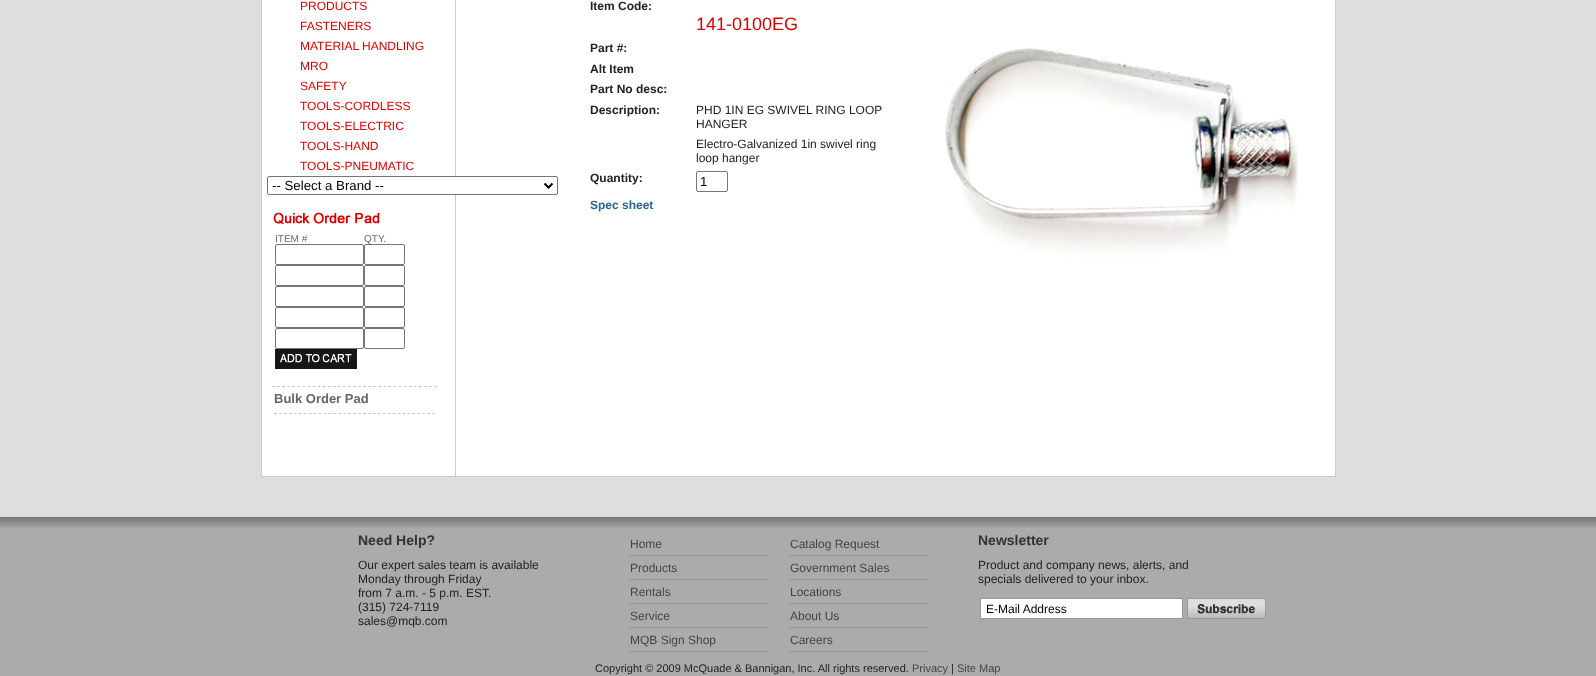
<?xml version="1.0" encoding="UTF-8"?>
<svg xmlns="http://www.w3.org/2000/svg" xmlns:xlink="http://www.w3.org/1999/xlink" width="1596" height="676">
  <rect width="100%" height="100%" fill="#dedede" />
  <rect x="261.5" y="-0.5" width="1074" height="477" fill="#ffffff" stroke="#cccccc" />
  <rect x="455" width="1" height="476" fill="#cccccc" />
  <rect x="267.5" y="176.5" width="290" height="18" rx="1.5" fill="#ffffff" stroke="#767676" />
  <path d="M 544.5 183.5 l 4 4 l 4 -4" fill="none" stroke="#000000" stroke-width="2" />
  <image x="273" y="212" width="107" height="12" xlink:href="image1.png" />
  <rect x="275.5" y="244.5" width="88" height="20" rx="1.5" fill="none" stroke="#767676" />
  <rect x="364.5" y="244.5" width="40" height="20" rx="1.5" fill="none" stroke="#767676" />
  <rect x="275.5" y="265.5" width="88" height="20" rx="1.5" fill="none" stroke="#767676" />
  <rect x="364.5" y="265.5" width="40" height="20" rx="1.5" fill="none" stroke="#767676" />
  <rect x="275.5" y="286.5" width="88" height="20" rx="1.5" fill="none" stroke="#767676" />
  <rect x="364.5" y="286.5" width="40" height="20" rx="1.5" fill="none" stroke="#767676" />
  <rect x="275.5" y="307.5" width="88" height="20" rx="1.5" fill="none" stroke="#767676" />
  <rect x="364.5" y="307.5" width="40" height="20" rx="1.5" fill="none" stroke="#767676" />
  <rect x="275.5" y="328.5" width="88" height="20" rx="1.5" fill="none" stroke="#767676" />
  <rect x="364.5" y="328.5" width="40" height="20" rx="1.5" fill="none" stroke="#767676" />
  <image x="275" y="349" width="82" height="20" xlink:href="image2.png" />
  <path d="M 272 386.5 h 165" fill="none" stroke="#cccccc" stroke-dasharray="3 2.06" />
  <path d="M 274 413.5 h 161" fill="none" stroke="#cccccc" stroke-dasharray="3 1.94" />
  <rect x="696.5" y="171.5" width="31" height="20" rx="1.5" fill="none" stroke="#767676" />
  <image x="945" y="48" width="354" height="212" xlink:href="image3.png" />
  <rect y="528" width="1596" height="148" fill="#ababab" />
  <image x="0" y="517" width="1596" height="11" xlink:href="image4.png" />
  <rect x="628" y="555" width="140" height="1" fill="#999999" />
  <rect x="628" y="579" width="140" height="1" fill="#999999" />
  <rect x="628" y="603" width="140" height="1" fill="#999999" />
  <rect x="628" y="627" width="140" height="1" fill="#999999" />
  <rect x="628" y="651" width="140" height="1" fill="#999999" />
  <rect x="788" y="555" width="140" height="1" fill="#999999" />
  <rect x="788" y="579" width="140" height="1" fill="#999999" />
  <rect x="788" y="603" width="140" height="1" fill="#999999" />
  <rect x="788" y="627" width="140" height="1" fill="#999999" />
  <rect x="788" y="651" width="140" height="1" fill="#999999" />
  <rect x="980.5" y="598.5" width="202" height="20" fill="#ffffff" stroke="#999999" />
  <image x="1187" y="598" width="79" height="21" xlink:href="image5.png" />
  <text x="300" y="10" style="font-family: Liberation Sans; font-size: 12px; fill: #de0000">PRODUCTS</text>
  <text x="300" y="30" style="font-family: Liberation Sans; font-size: 12px; fill: #de0000">FASTENERS</text>
  <text x="300" y="50" style="font-family: Liberation Sans; font-size: 12px; fill: #de0000">MATERIAL HANDLING</text>
  <text x="300" y="70" style="font-family: Liberation Sans; font-size: 12px; fill: #de0000">MRO</text>
  <text x="300" y="90" style="font-family: Liberation Sans; font-size: 12px; fill: #de0000">SAFETY</text>
  <text x="300" y="110" style="font-family: Liberation Sans; font-size: 12px; fill: #de0000">TOOLS-CORDLESS</text>
  <text x="300" y="130" style="font-family: Liberation Sans; font-size: 12px; fill: #de0000">TOOLS-ELECTRIC</text>
  <text x="300" y="150" style="font-family: Liberation Sans; font-size: 12px; fill: #de0000">TOOLS-HAND</text>
  <text x="300" y="170" style="font-family: Liberation Sans; font-size: 12px; fill: #de0000">TOOLS-PNEUMATIC</text>
  <text x="272" y="190" style="font-family: Liberation Sans; font-size: 13.25px; fill: #000000">-- Select a Brand --</text>
  <text x="275" y="242" style="font-family: Liberation Sans; font-size: 10px; fill: #666666">ITEM #</text>
  <text x="364" y="242" style="font-family: Liberation Sans; font-size: 10px; fill: #666666">QTY.</text>
  <text x="274" y="403" style="font-family: Liberation Sans; font-size: 13px; font-weight: bold; fill: #666666">Bulk Order Pad</text>
  <text x="590" y="10" style="font-family: Liberation Sans; font-size: 12px; font-weight: bold; fill: #222222">Item Code:</text>
  <text x="696" y="30" style="font-family: Liberation Sans; font-size: 18px; fill: #de0000">141-0100EG</text>
  <text x="590" y="52" style="font-family: Liberation Sans; font-size: 12px; font-weight: bold; fill: #222222">Part #:</text>
  <text x="590" y="73" style="font-family: Liberation Sans; font-size: 12px; font-weight: bold; fill: #222222">Alt Item</text>
  <text x="590" y="93" style="font-family: Liberation Sans; font-size: 12px; font-weight: bold; fill: #222222">Part No desc:</text>
  <text x="590" y="114" style="font-family: Liberation Sans; font-size: 12px; font-weight: bold; fill: #222222">Description:</text>
  <text x="696" y="114" style="font-family: Liberation Sans; font-size: 12px; fill: #222222">PHD 1IN EG SWIVEL RING LOOP</text>
  <text x="696" y="128" style="font-family: Liberation Sans; font-size: 12px; fill: #222222">HANGER</text>
  <text x="696" y="148" style="font-family: Liberation Sans; font-size: 12px; fill: #222222">Electro-Galvanized 1in swivel ring</text>
  <text x="696" y="162" style="font-family: Liberation Sans; font-size: 12px; fill: #222222">loop hanger</text>
  <text x="590" y="182" style="font-family: Liberation Sans; font-size: 12px; font-weight: bold; fill: #222222">Quantity:</text>
  <text x="700" y="186" style="font-family: Liberation Sans; font-size: 13.25px; fill: #000000">1</text>
  <text x="590" y="209" style="font-family: Liberation Sans; font-size: 12px; font-weight: bold; fill: #2e6695">Spec sheet</text>
  <text x="358" y="545" style="font-family: Liberation Sans; font-size: 14px; font-weight: bold; fill: #333333">Need Help?</text>
  <text x="358" y="569" style="font-family: Liberation Sans; font-size: 12px; fill: #222222">Our expert sales team is available</text>
  <text x="358" y="583" style="font-family: Liberation Sans; font-size: 12px; fill: #222222">Monday through Friday</text>
  <text x="358" y="597" style="font-family: Liberation Sans; font-size: 12px; fill: #222222">from 7 a.m. - 5 p.m. EST.</text>
  <text x="358" y="611" style="font-family: Liberation Sans; font-size: 12px; fill: #222222">(315) 724-7119</text>
  <text x="358" y="625" style="font-family: Liberation Sans; font-size: 12px; fill: #222222">sales@mqb.com</text>
  <text x="630" y="548" style="font-family: Liberation Sans; font-size: 12px; fill: #454545">Home</text>
  <text x="630" y="572" style="font-family: Liberation Sans; font-size: 12px; fill: #454545">Products</text>
  <text x="630" y="596" style="font-family: Liberation Sans; font-size: 12px; fill: #454545">Rentals</text>
  <text x="630" y="620" style="font-family: Liberation Sans; font-size: 12px; fill: #454545">Service</text>
  <text x="630" y="644" style="font-family: Liberation Sans; font-size: 12px; fill: #454545">MQB Sign Shop</text>
  <text x="790" y="548" style="font-family: Liberation Sans; font-size: 12px; fill: #454545">Catalog Request</text>
  <text x="790" y="572" style="font-family: Liberation Sans; font-size: 12px; fill: #454545">Government Sales</text>
  <text x="790" y="596" style="font-family: Liberation Sans; font-size: 12px; fill: #454545">Locations</text>
  <text x="790" y="620" style="font-family: Liberation Sans; font-size: 12px; fill: #454545">About Us</text>
  <text x="790" y="644" style="font-family: Liberation Sans; font-size: 12px; fill: #454545">Careers</text>
  <text x="978" y="545" style="font-family: Liberation Sans; font-size: 14px; font-weight: bold; fill: #333333">Newsletter</text>
  <text x="978" y="569" style="font-family: Liberation Sans; font-size: 12px; fill: #222222">Product and company news, alerts, and</text>
  <text x="978" y="583" style="font-family: Liberation Sans; font-size: 12px; fill: #222222">specials delivered to your inbox.</text>
  <text x="986" y="613" style="font-family: Liberation Sans; font-size: 12px; fill: #000000">E-Mail Address</text>
  <text x="595" y="672" style="font-family: Liberation Sans; font-size: 11px; fill: #222222">Copyright © 2009 McQuade &amp; Bannigan, Inc. All rights reserved.</text>
  <text x="912" y="672" style="font-family: Liberation Sans; font-size: 11px; fill: #454545">Privacy</text>
  <text x="951" y="672" style="font-family: Liberation Sans; font-size: 11px; fill: #222222">|</text>
  <text x="957" y="672" style="font-family: Liberation Sans; font-size: 11px; fill: #454545">Site Map</text>
</svg>
